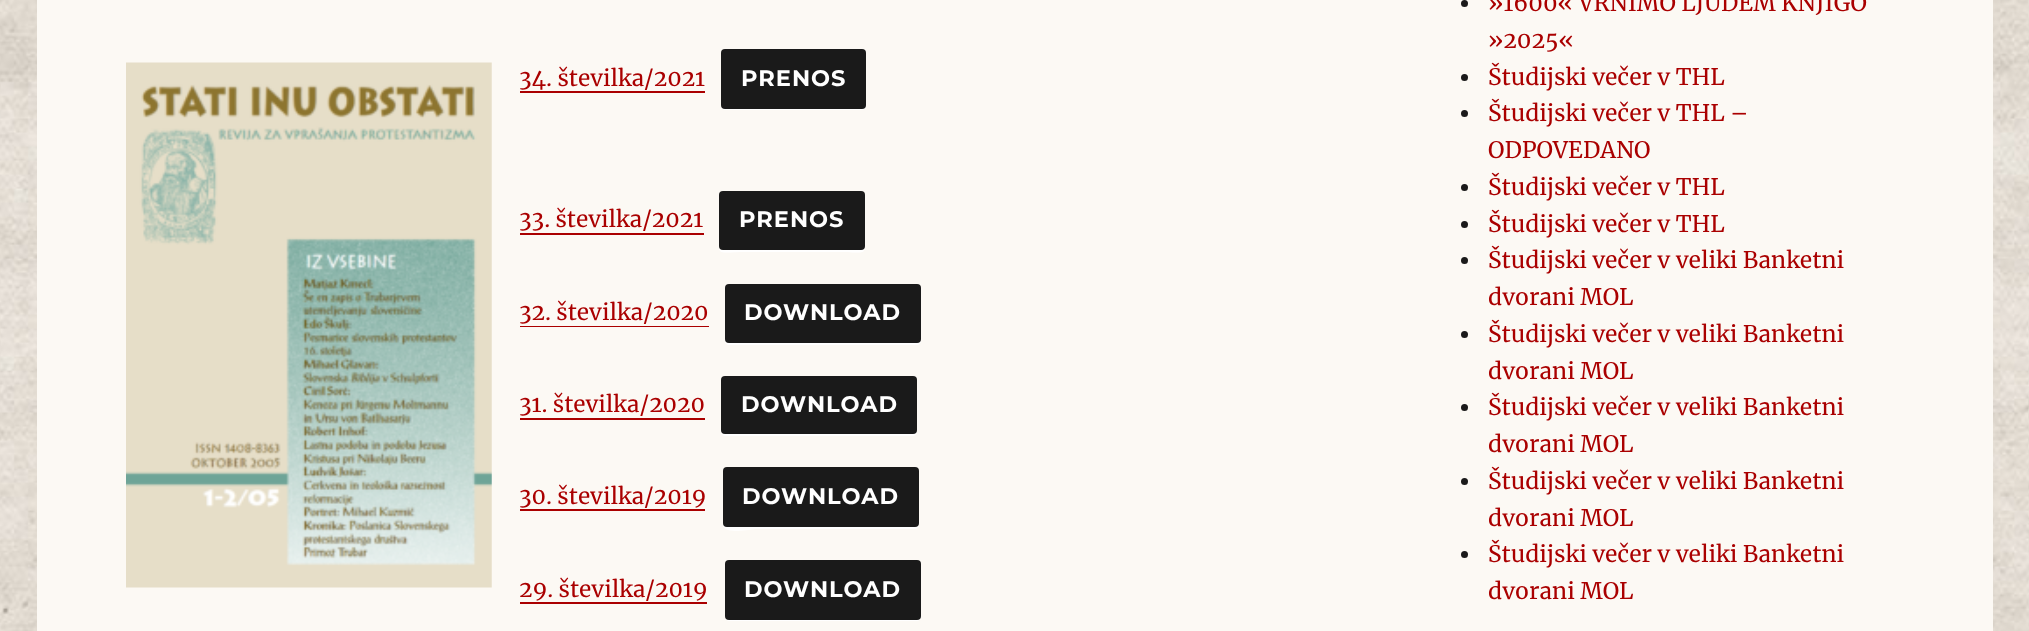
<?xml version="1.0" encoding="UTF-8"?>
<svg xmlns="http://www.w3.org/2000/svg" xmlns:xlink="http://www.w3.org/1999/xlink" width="2029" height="631">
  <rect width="100%" height="100%" fill="#ffffff" />
  <image x="0" y="0" width="2029" height="631" xlink:href="image1.png" />
  <rect x="37" width="1956" height="631" fill="#fcf9f4" />
  <image x="126" y="62" width="366" height="526" xlink:href="image2.png" />
  <rect x="520" y="91" width="185" height="2" fill="#aa0000" />
  <path d="M 721 105 v 1 c 0 2 2 4 4 4 h 137 c 2 0 4 -2 4 -4 c -1 2 -2 2 -3 2 h -139 c -1 0 -3 -1 -3 -3 z" fill="#ffffff" />
  <rect x="721" y="49" width="145" height="60" rx="4" fill="#1a1a1a" />
  <path d="M 520 233 v 2 h 184 v -28 v 26 z" fill="#aa0000" />
  <path d="M 719 196 v 35 c 0 27 -4 21 27 21 h 92 c 31 0 27 6 27 -21 v -25 c 0 -1 1 -8 -1 -11 v 52 c 0 2 -1 3 -3 3 h -138 c -2 0 -4 -1 -4 -3 z" fill="#ffffff" />
  <rect x="719" y="191" width="146" height="59" rx="4" fill="#1a1a1a" />
  <path d="M 520 326 v 1 h 189 v -28 v 27 z" fill="#aa0000" />
  <path d="M 725 341 c 0 2 2 4 4 4 h 188 c 2 0 4 -2 4 -4 v -52 l -1 -2 v 53 c 0 1 -1 3 -3 3 h -189 c -1 0 -2 -1 -3 -2 z" fill="#ffffff" />
  <rect x="725" y="284" width="196" height="59" rx="4" fill="#1a1a1a" />
  <rect x="520" y="418" width="185" height="2" fill="#aa0000" />
  <path d="M 721 430 c 0 3 1 6 4 6 h 188 c 3 0 4 -3 4 -6 c 0 2 -2 4 -3 4 h -190 c -1 0 -3 -2 -3 -4 z" fill="#ffffff" />
  <rect x="721" y="376" width="196" height="58" rx="4" fill="#1a1a1a" />
  <rect x="520" y="509" width="185" height="2" fill="#aa0000" />
  <path d="M 723 525 c 0 10 29 4 35 4 h 157 c 6 0 4 -10 4 -13 v -44 v 51 c 0 2 -2 4 -4 4 h -189 c -1 0 -2 -1 -3 -2 z" fill="#ffffff" />
  <rect x="723" y="467" width="196" height="60" rx="4" fill="#1a1a1a" />
  <rect x="520" y="602" width="187" height="2" fill="#aa0000" />
  <path d="M 725 618 c 1 2 2 3 4 3 h 188 c 2 0 4 -2 4 -4 v -51 l -1 -2 v 52 c 0 2 -1 4 -3 4 h -189 c -1 0 -2 -1 -3 -2 z" fill="#ffffff" />
  <rect x="725" y="560" width="196" height="60" rx="4" fill="#1a1a1a" />
  <circle cx="1464.5" cy="3.5" r="3.5" fill="#1a1a1a" />
  <circle cx="1464.5" cy="77.5" r="3.5" fill="#1a1a1a" />
  <circle cx="1464.5" cy="113.5" r="3.5" fill="#1a1a1a" />
  <circle cx="1464.5" cy="187.5" r="3.5" fill="#1a1a1a" />
  <circle cx="1464.5" cy="224.5" r="3.5" fill="#1a1a1a" />
  <circle cx="1464.5" cy="260.5" r="3.5" fill="#1a1a1a" />
  <circle cx="1464.5" cy="334.5" r="3.5" fill="#1a1a1a" />
  <circle cx="1464.5" cy="407.5" r="3.5" fill="#1a1a1a" />
  <circle cx="1464.5" cy="481.5" r="3.5" fill="#1a1a1a" />
  <circle cx="1464.5" cy="554.5" r="3.5" fill="#1a1a1a" />
  <text x="519" y="86" style="font-family: Merriweather; font-size: 22.5px; fill: #aa0000">34. številka/2021</text>
  <text x="741" y="86" style="font-family: Montserrat; font-size: 22.5px; font-weight: bold; letter-spacing: 1px; fill: #ffffff">PRENOS</text>
  <text x="519" y="227" style="font-family: Merriweather; font-size: 22.5px; fill: #aa0000">33. številka/2021</text>
  <text x="739" y="227" style="font-family: Montserrat; font-size: 22.5px; font-weight: bold; letter-spacing: 1px; fill: #ffffff">PRENOS</text>
  <text x="519" y="320" style="font-family: Merriweather; font-size: 22.5px; fill: #aa0000">32. številka/2020</text>
  <text x="744" y="320" style="font-family: Montserrat; font-size: 22.5px; font-weight: bold; letter-spacing: 1px; fill: #ffffff">DOWNLOAD</text>
  <text x="519" y="412" style="font-family: Merriweather; font-size: 22.5px; fill: #aa0000">31. številka/2020</text>
  <text x="741" y="412" style="font-family: Montserrat; font-size: 22.5px; font-weight: bold; letter-spacing: 1px; fill: #ffffff">DOWNLOAD</text>
  <text x="519" y="504" style="font-family: Merriweather; font-size: 22.5px; fill: #aa0000">30. številka/2019</text>
  <text x="742" y="504" style="font-family: Montserrat; font-size: 22.5px; font-weight: bold; letter-spacing: 1px; fill: #ffffff">DOWNLOAD</text>
  <text x="519" y="597" style="font-family: Merriweather; font-size: 22.5px; fill: #aa0000">29. številka/2019</text>
  <text x="744" y="597" style="font-family: Montserrat; font-size: 22.5px; font-weight: bold; letter-spacing: 1px; fill: #ffffff">DOWNLOAD</text>
  <text x="1488" y="11" style="font-family: Merriweather; font-size: 22.75px; fill: #aa0000">»1600« VRNIMO LJUDEM KNJIGO</text>
  <text x="1488" y="48" style="font-family: Merriweather; font-size: 22.75px; fill: #aa0000">»2025«</text>
  <text x="1488" y="85" style="font-family: Merriweather; font-size: 22.75px; fill: #aa0000">Študijski večer v THL</text>
  <text x="1488" y="121" style="font-family: Merriweather; font-size: 22.75px; fill: #aa0000">Študijski večer v THL –</text>
  <text x="1488" y="158" style="font-family: Merriweather; font-size: 22.75px; fill: #aa0000">ODPOVEDANO</text>
  <text x="1488" y="195" style="font-family: Merriweather; font-size: 22.75px; fill: #aa0000">Študijski večer v THL</text>
  <text x="1488" y="232" style="font-family: Merriweather; font-size: 22.75px; fill: #aa0000">Študijski večer v THL</text>
  <text x="1488" y="268" style="font-family: Merriweather; font-size: 22.75px; fill: #aa0000">Študijski večer v veliki Banketni</text>
  <text x="1488" y="305" style="font-family: Merriweather; font-size: 22.75px; fill: #aa0000">dvorani MOL</text>
  <text x="1488" y="342" style="font-family: Merriweather; font-size: 22.75px; fill: #aa0000">Študijski večer v veliki Banketni</text>
  <text x="1488" y="379" style="font-family: Merriweather; font-size: 22.75px; fill: #aa0000">dvorani MOL</text>
  <text x="1488" y="415" style="font-family: Merriweather; font-size: 22.75px; fill: #aa0000">Študijski večer v veliki Banketni</text>
  <text x="1488" y="452" style="font-family: Merriweather; font-size: 22.75px; fill: #aa0000">dvorani MOL</text>
  <text x="1488" y="489" style="font-family: Merriweather; font-size: 22.75px; fill: #aa0000">Študijski večer v veliki Banketni</text>
  <text x="1488" y="526" style="font-family: Merriweather; font-size: 22.75px; fill: #aa0000">dvorani MOL</text>
  <text x="1488" y="562" style="font-family: Merriweather; font-size: 22.75px; fill: #aa0000">Študijski večer v veliki Banketni</text>
  <text x="1488" y="599" style="font-family: Merriweather; font-size: 22.75px; fill: #aa0000">dvorani MOL</text>
</svg>
